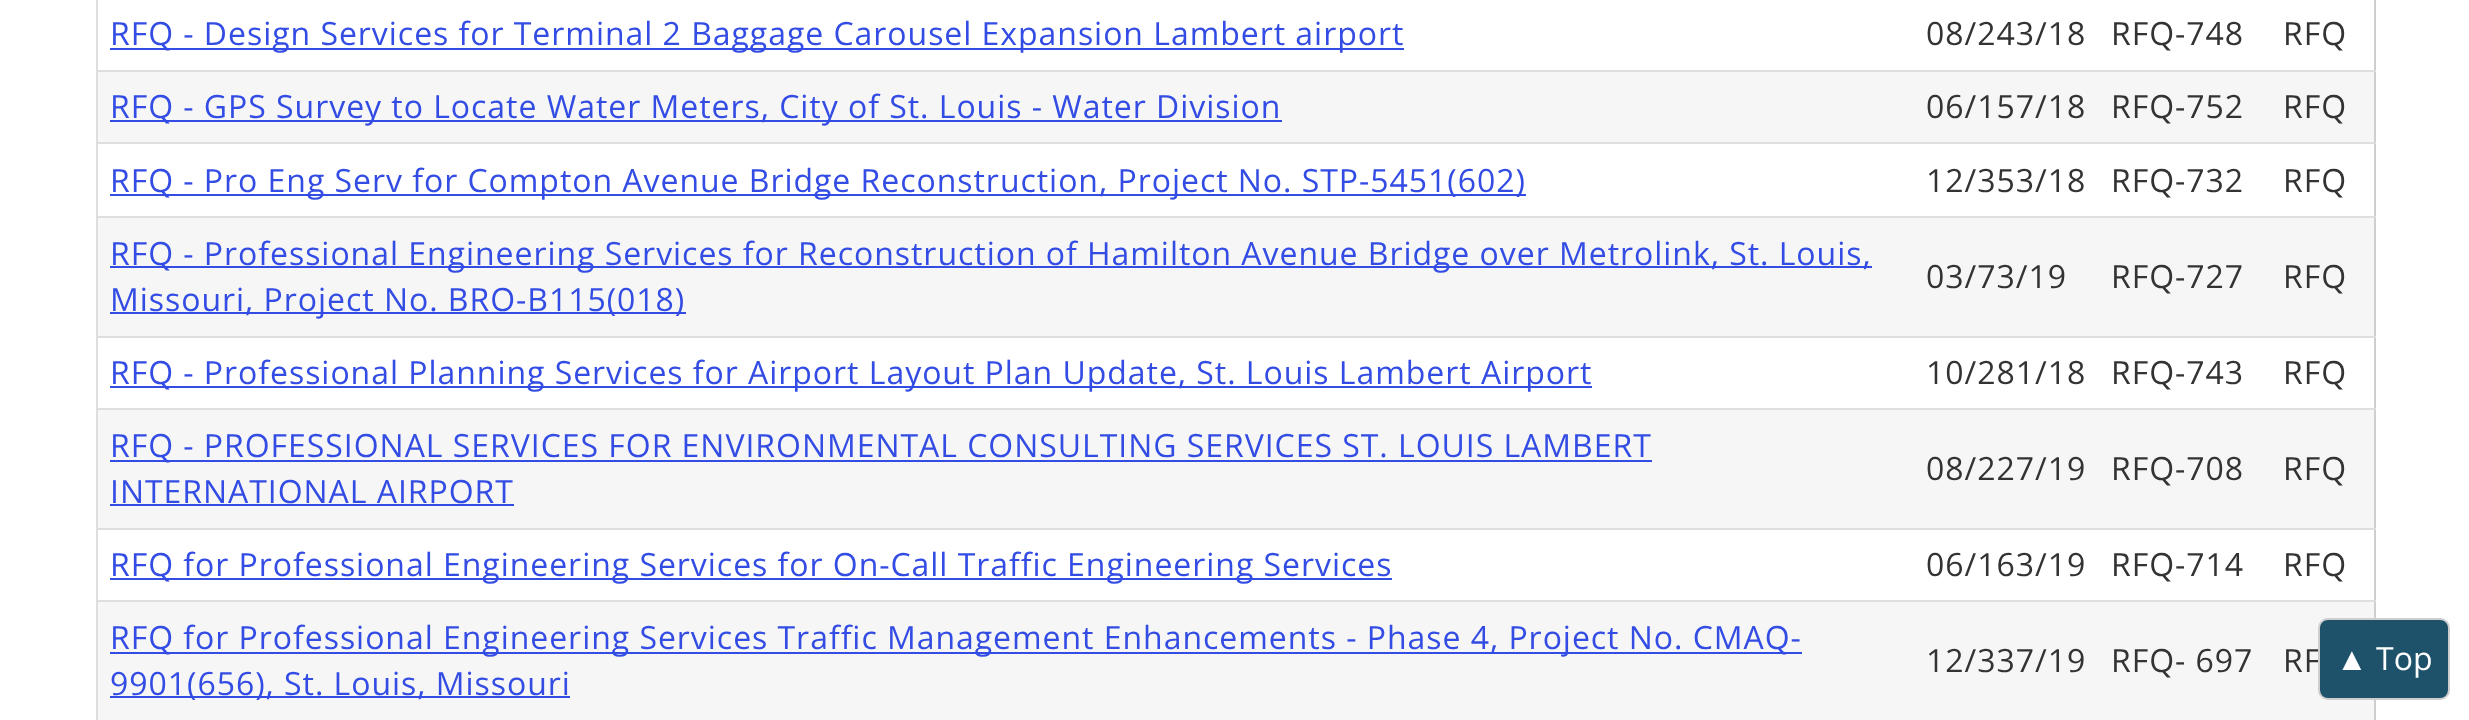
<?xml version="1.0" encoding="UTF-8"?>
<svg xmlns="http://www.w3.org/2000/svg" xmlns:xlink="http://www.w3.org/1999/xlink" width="2469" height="720">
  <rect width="100%" height="100%" fill="#ffffff" />
  <rect x="110" y="48" width="1294" height="2" fill="#334ce4" />
  <rect x="2374" width="2" height="720" fill="#cecece" />
  <rect x="96" width="2" height="720" fill="#dedede" />
  <rect x="96" y="70" width="2280" height="2" fill="#dedede" />
  <rect x="98" y="72" width="2276" height="70" fill="#f6f6f6" />
  <rect x="110" y="120" width="1172" height="2" fill="#334ce4" />
  <rect x="96" y="142" width="2280" height="2" fill="#dedede" />
  <rect x="110" y="194" width="1416" height="2" fill="#334ce4" />
  <rect x="96" y="216" width="2280" height="2" fill="#dedede" />
  <rect x="98" y="218" width="2276" height="118" fill="#f6f6f6" />
  <rect x="110" y="266" width="1762" height="2" fill="#334ce4" />
  <rect x="110" y="312" width="576" height="2" fill="#334ce4" />
  <rect x="96" y="336" width="2280" height="2" fill="#dedede" />
  <rect x="110" y="386" width="1482" height="2" fill="#334ce4" />
  <rect x="96" y="408" width="2280" height="2" fill="#dedede" />
  <rect x="98" y="410" width="2276" height="118" fill="#f6f6f6" />
  <rect x="110" y="460" width="1542" height="2" fill="#334ce4" />
  <rect x="110" y="504" width="404" height="2" fill="#334ce4" />
  <rect x="96" y="528" width="2280" height="2" fill="#dedede" />
  <rect x="110" y="578" width="1282" height="2" fill="#334ce4" />
  <rect x="96" y="600" width="2280" height="2" fill="#dedede" />
  <rect x="98" y="602" width="2276" height="118" fill="#f6f6f6" />
  <rect x="110" y="652" width="1692" height="2" fill="#334ce4" />
  <rect x="110" y="696" width="460" height="2" fill="#334ce4" />
  <text x="110" y="45" style="font-family: Open Sans; font-size: 32px; letter-spacing: 0.96px; fill: #334ce4">RFQ - Design Services for Terminal 2 Baggage Carousel Expansion Lambert airport</text>
  <text x="1926" y="45" style="font-family: Open Sans; font-size: 32px; letter-spacing: 0.96px; fill: #333333">08/243/18</text>
  <text x="2111" y="45" style="font-family: Open Sans; font-size: 32px; letter-spacing: 0.96px; fill: #333333">RFQ-748</text>
  <text x="2283" y="45" style="font-family: Open Sans; font-size: 32px; letter-spacing: 0.96px; fill: #333333">RFQ</text>
  <text x="110" y="118" style="font-family: Open Sans; font-size: 32px; letter-spacing: 0.96px; fill: #334ce4">RFQ - GPS Survey to Locate Water Meters, City of St. Louis - Water Division</text>
  <text x="1926" y="118" style="font-family: Open Sans; font-size: 32px; letter-spacing: 0.96px; fill: #333333">06/157/18</text>
  <text x="2111" y="118" style="font-family: Open Sans; font-size: 32px; letter-spacing: 0.96px; fill: #333333">RFQ-752</text>
  <text x="2283" y="118" style="font-family: Open Sans; font-size: 32px; letter-spacing: 0.96px; fill: #333333">RFQ</text>
  <text x="110" y="192" style="font-family: Open Sans; font-size: 32px; letter-spacing: 0.96px; fill: #334ce4">RFQ - Pro Eng Serv for Compton Avenue Bridge Reconstruction, Project No. STP-5451(602)</text>
  <text x="1926" y="192" style="font-family: Open Sans; font-size: 32px; letter-spacing: 0.96px; fill: #333333">12/353/18</text>
  <text x="2111" y="192" style="font-family: Open Sans; font-size: 32px; letter-spacing: 0.96px; fill: #333333">RFQ-732</text>
  <text x="2283" y="192" style="font-family: Open Sans; font-size: 32px; letter-spacing: 0.96px; fill: #333333">RFQ</text>
  <text x="110" y="265" style="font-family: Open Sans; font-size: 32px; letter-spacing: 0.96px; fill: #334ce4">RFQ - Professional Engineering Services for Reconstruction of Hamilton Avenue Bridge over Metrolink, St. Louis,</text>
  <text x="110" y="311" style="font-family: Open Sans; font-size: 32px; letter-spacing: 0.96px; fill: #334ce4">Missouri, Project No. BRO-B115(018)</text>
  <text x="1926" y="288" style="font-family: Open Sans; font-size: 32px; letter-spacing: 0.96px; fill: #333333">03/73/19</text>
  <text x="2111" y="288" style="font-family: Open Sans; font-size: 32px; letter-spacing: 0.96px; fill: #333333">RFQ-727</text>
  <text x="2283" y="288" style="font-family: Open Sans; font-size: 32px; letter-spacing: 0.96px; fill: #333333">RFQ</text>
  <text x="110" y="384" style="font-family: Open Sans; font-size: 32px; letter-spacing: 0.96px; fill: #334ce4">RFQ - Professional Planning Services for Airport Layout Plan Update, St. Louis Lambert Airport</text>
  <text x="1926" y="384" style="font-family: Open Sans; font-size: 32px; letter-spacing: 0.96px; fill: #333333">10/281/18</text>
  <text x="2111" y="384" style="font-family: Open Sans; font-size: 32px; letter-spacing: 0.96px; fill: #333333">RFQ-743</text>
  <text x="2283" y="384" style="font-family: Open Sans; font-size: 32px; letter-spacing: 0.96px; fill: #333333">RFQ</text>
  <text x="110" y="457" style="font-family: Open Sans; font-size: 32px; letter-spacing: 0.96px; fill: #334ce4">RFQ - PROFESSIONAL SERVICES FOR ENVIRONMENTAL CONSULTING SERVICES ST. LOUIS LAMBERT</text>
  <text x="110" y="503" style="font-family: Open Sans; font-size: 32px; letter-spacing: 0.96px; fill: #334ce4">INTERNATIONAL AIRPORT</text>
  <text x="1926" y="480" style="font-family: Open Sans; font-size: 32px; letter-spacing: 0.96px; fill: #333333">08/227/19</text>
  <text x="2111" y="480" style="font-family: Open Sans; font-size: 32px; letter-spacing: 0.96px; fill: #333333">RFQ-708</text>
  <text x="2283" y="480" style="font-family: Open Sans; font-size: 32px; letter-spacing: 0.96px; fill: #333333">RFQ</text>
  <text x="110" y="576" style="font-family: Open Sans; font-size: 32px; letter-spacing: 0.96px; fill: #334ce4">RFQ for Professional Engineering Services for On-Call Traffic Engineering Services</text>
  <text x="1926" y="576" style="font-family: Open Sans; font-size: 32px; letter-spacing: 0.96px; fill: #333333">06/163/19</text>
  <text x="2111" y="576" style="font-family: Open Sans; font-size: 32px; letter-spacing: 0.96px; fill: #333333">RFQ-714</text>
  <text x="2283" y="576" style="font-family: Open Sans; font-size: 32px; letter-spacing: 0.96px; fill: #333333">RFQ</text>
  <text x="110" y="649" style="font-family: Open Sans; font-size: 32px; letter-spacing: 0.96px; fill: #334ce4">RFQ for Professional Engineering Services Traffic Management Enhancements - Phase 4, Project No. CMAQ-</text>
  <text x="110" y="695" style="font-family: Open Sans; font-size: 32px; letter-spacing: 0.96px; fill: #334ce4">9901(656), St. Louis, Missouri</text>
  <text x="1926" y="672" style="font-family: Open Sans; font-size: 32px; letter-spacing: 0.96px; fill: #333333">12/337/19</text>
  <text x="2111" y="672" style="font-family: Open Sans; font-size: 32px; letter-spacing: 0.96px; fill: #333333">RFQ- 697</text>
  <text x="2283" y="672" style="font-family: Open Sans; font-size: 32px; letter-spacing: 0.96px; fill: #333333">RF</text>
  <rect x="2319" y="619" width="130" height="80" rx="9" fill="#1e526b" stroke="#cecece" stroke-width="2" />
  <text x="2336" y="670" style="font-family: Liberation Sans; font-size: 32px; fill: #ffffff">▲</text>
  <text x="2376" y="670" style="font-family: Open Sans; font-size: 32px; fill: #ffffff">Top</text>
</svg>
